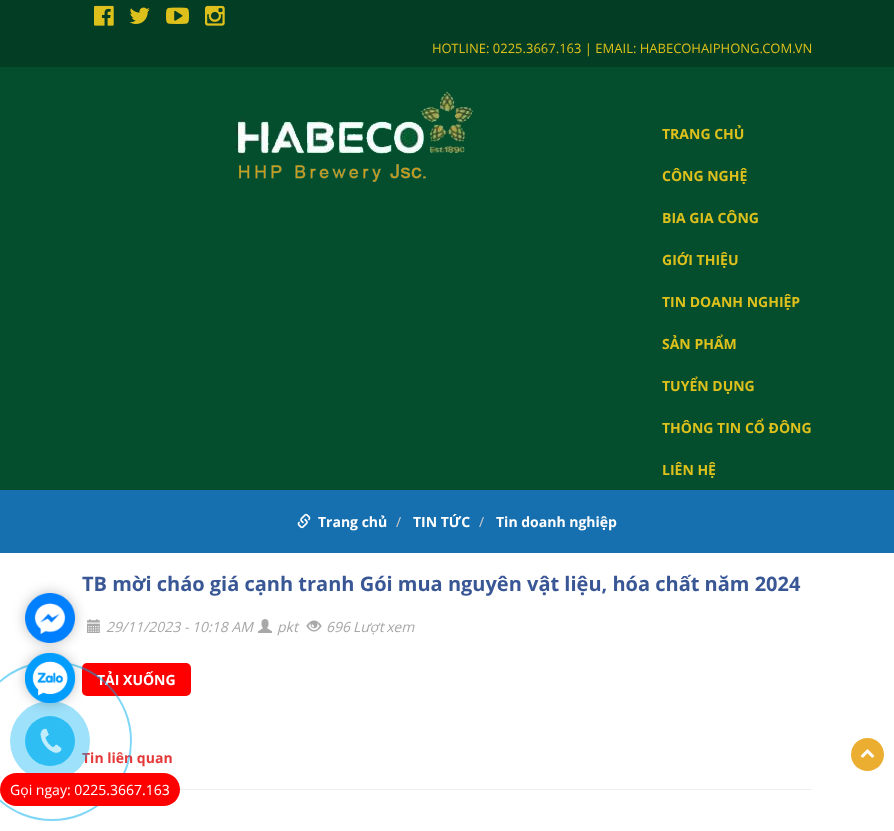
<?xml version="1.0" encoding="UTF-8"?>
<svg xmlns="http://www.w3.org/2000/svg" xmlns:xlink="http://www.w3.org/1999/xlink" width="894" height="831">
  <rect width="100%" height="100%" fill="#ffffff" />
  <rect width="894" height="67" fill="#033d23" />
  <image x="94" y="5" width="20" height="21" xlink:href="image1.png" />
  <image x="129" y="7" width="21" height="17" xlink:href="image2.png" />
  <image x="166" y="7" width="23" height="17" xlink:href="image3.png" />
  <image x="205" y="5" width="20" height="21" xlink:href="image4.png" />
  <rect y="67" width="894" height="423" fill="#044e2d" />
  <image x="236" y="91" width="238" height="91" xlink:href="image5.png" />
  <rect y="490" width="894" height="63" fill="#166fae" />
  <image x="297" y="513" width="14" height="16" xlink:href="image6.png" />
  <image x="87" y="619" width="13" height="14" xlink:href="image9.png" />
  <image x="258" y="619" width="14" height="14" xlink:href="image10.png" />
  <image x="306" y="620" width="16" height="12" xlink:href="image11.png" />
  <rect x="82" y="663" width="109" height="33" rx="5" fill="#ff0000" />
  <rect x="179" y="789" width="633" height="1" fill="#eeeeee" />
  <circle cx="867.5" cy="754.5" r="16.5" fill="#ebae30" />
  <image x="860" y="749" width="15" height="9" xlink:href="image12.png" />
  <text x="432" y="53" style="font-family: Open Sans; font-size: 13px; fill: #dec01d">HOTLINE: 0225.3667.163 | EMAIL: HABECOHAIPHONG.COM.VN</text>
  <text x="662" y="139" style="font-family: Open Sans; font-size: 14px; font-weight: bold; fill: #dec01d">TRANG CHỦ</text>
  <text x="662" y="181" style="font-family: Open Sans; font-size: 14px; font-weight: bold; fill: #dec01d">CÔNG NGHỆ</text>
  <text x="662" y="223" style="font-family: Open Sans; font-size: 14px; font-weight: bold; fill: #dec01d">BIA GIA CÔNG</text>
  <text x="662" y="265" style="font-family: Open Sans; font-size: 14px; font-weight: bold; fill: #dec01d">GIỚI THIỆU</text>
  <text x="662" y="307" style="font-family: Open Sans; font-size: 14px; font-weight: bold; fill: #dec01d">TIN DOANH NGHIỆP</text>
  <text x="662" y="349" style="font-family: Open Sans; font-size: 14px; font-weight: bold; fill: #dec01d">SẢN PHẨM</text>
  <text x="662" y="391" style="font-family: Open Sans; font-size: 14px; font-weight: bold; fill: #dec01d">TUYỂN DỤNG</text>
  <text x="662" y="433" style="font-family: Open Sans; font-size: 14px; font-weight: bold; fill: #dec01d">THÔNG TIN CỔ ĐÔNG</text>
  <text x="662" y="475" style="font-family: Open Sans; font-size: 14px; font-weight: bold; fill: #dec01d">LIÊN HỆ</text>
  <text x="318" y="527" style="font-family: Open Sans; font-size: 14px; font-weight: bold; fill: #ffffff">Trang chủ</text>
  <text x="396" y="527" style="font-family: Open Sans; font-size: 14px; fill: #cccccc">/</text>
  <text x="413" y="527" style="font-family: Open Sans; font-size: 14px; font-weight: bold; fill: #ffffff">TIN TỨC</text>
  <text x="479" y="527" style="font-family: Open Sans; font-size: 14px; fill: #cccccc">/</text>
  <text x="496" y="527" style="font-family: Open Sans; font-size: 14px; font-weight: bold; fill: #ffffff">Tin doanh nghiệp</text>
  <text x="82" y="591" style="font-family: Open Sans; font-size: 20px; font-weight: bold; fill: #3a5795">TB mời cháo giá cạnh tranh Gói mua nguyên vật liệu, hóa chất năm 2024</text>
  <text x="106" y="632" style="font-family: Open Sans; font-size: 14px; font-style: italic; fill: #a8a8a8">29/11/2023 - 10:18 AM</text>
  <text x="277" y="632" style="font-family: Open Sans; font-size: 14px; font-style: italic; fill: #a8a8a8">pkt</text>
  <text x="326" y="632" style="font-family: Open Sans; font-size: 14px; font-style: italic; fill: #a8a8a8">696</text>
  <text x="353" y="632" word-spacing="-1" style="font-family: Open Sans; font-size: 14px; font-style: italic; fill: #a8a8a8">Lượt xem</text>
  <text x="97" y="685" style="font-family: Open Sans; font-size: 14px; font-weight: bold; fill: #ffffff">TẢI XUỐNG</text>
  <text x="82" y="763" style="font-family: Open Sans; font-size: 14px; font-weight: bold; fill: #e53838">Tin liên quan</text>
  <circle cx="52" cy="741" r="79" fill="none" stroke="#00aff2" stroke-opacity="0.5" stroke-width="2" />
  <rect x="25" y="593" width="50" height="50" rx="25" fill="#000000" fill-opacity="0.25" filter="blur(6.5px)" />
  <circle cx="50" cy="741" r="40" fill="#00aff2" fill-opacity="0.38" />
  <circle cx="50" cy="741" r="25" fill="#2fbef4" />
  <rect x="25" y="653" width="50" height="50" rx="25" fill="#000000" fill-opacity="0.25" filter="blur(6.5px)" />
  <image x="25" y="653" width="50" height="50" xlink:href="image8.png" />
  <image x="25" y="593" width="50" height="50" xlink:href="image7.png" />
  <image x="40" y="728" width="22" height="25" xlink:href="image13.png" />
  <rect y="773" width="180" height="33" rx="16.5" fill="#ff0000" />
  <text x="10" y="795" style="font-family: Open Sans; font-size: 14px; fill: #ffffff">Gọi ngay: 0225.3667.163</text>
</svg>
